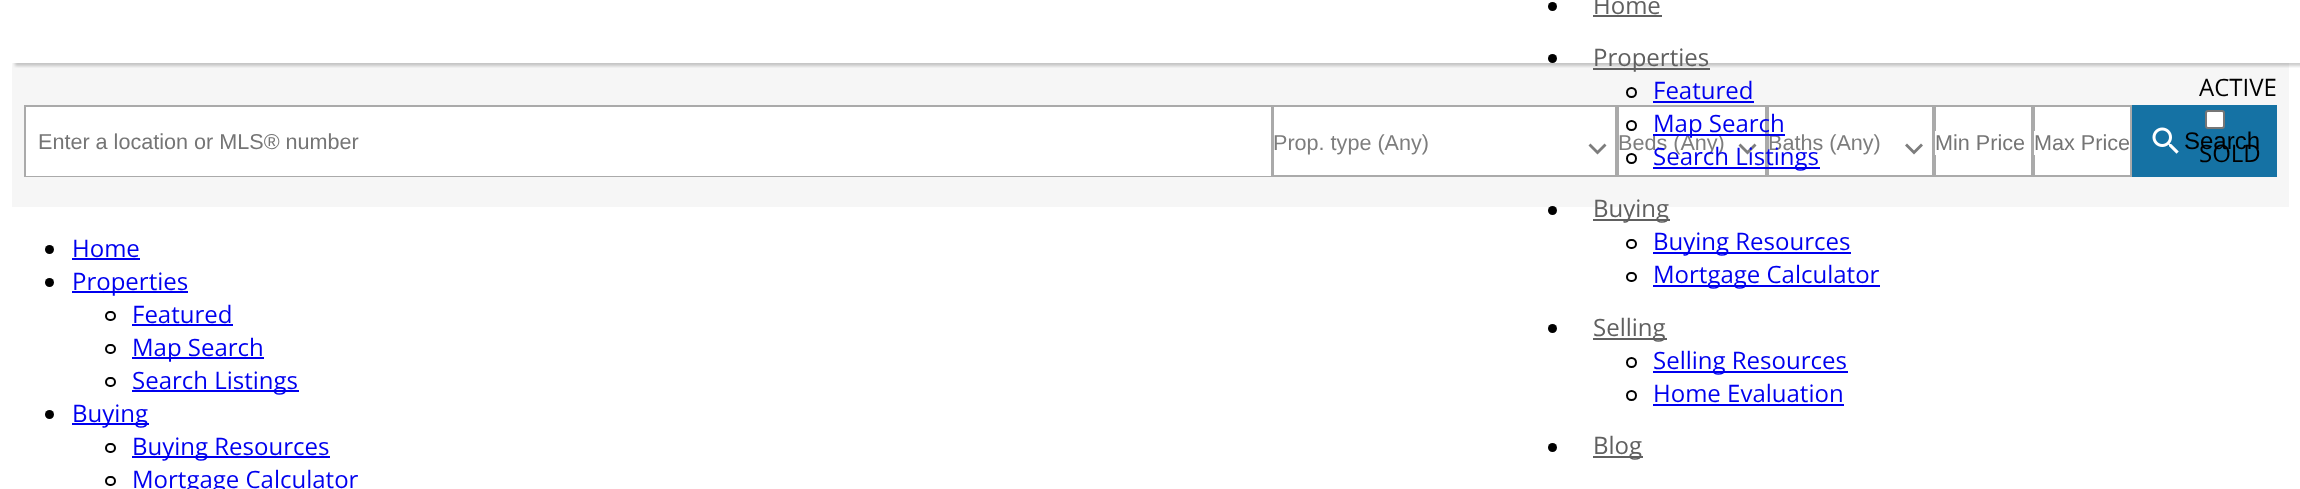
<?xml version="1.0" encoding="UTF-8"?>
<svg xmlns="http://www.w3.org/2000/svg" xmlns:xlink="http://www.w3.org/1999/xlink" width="2300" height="489">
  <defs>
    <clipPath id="clip1"><rect x="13" y="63" width="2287" height="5" /></clipPath>
  </defs>
  <rect width="100%" height="100%" fill="#ffffff" />
  <rect x="12" y="63" width="2277" height="144" fill="#f6f6f6" />
  <g clip-path="url(#clip1)">
    <rect x="15" y="-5" width="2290" height="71" fill="#000000" fill-opacity="0.2" filter="blur(1.5px)" />
  </g>
  <circle cx="1552.5" cy="6.5" r="4.5" fill="#000000" />
  <rect x="1593" y="15" width="69" height="2" fill="#606060" />
  <circle cx="1552.5" cy="58.5" r="4.5" fill="#000000" />
  <rect x="1593" y="68" width="117" height="2" fill="#606060" />
  <circle cx="1631.5" cy="92.5" r="4.5" fill="none" stroke="#000000" stroke-width="2" />
  <rect x="1653" y="101" width="101" height="2" fill="#0000ee" />
  <rect x="1618" y="106" width="148" height="70" fill="#ffffff" stroke="#aaaaaa" stroke-width="2" />
  <circle cx="1631.5" cy="125.5" r="4.5" fill="none" stroke="#000000" stroke-width="2" />
  <rect x="1768" y="106" width="165" height="70" fill="#ffffff" stroke="#aaaaaa" stroke-width="2" />
  <rect x="1653" y="167" width="167" height="2" fill="#0000ee" />
  <circle cx="1552.5" cy="210.5" r="4.5" fill="#000000" />
  <rect x="1593" y="219" width="77" height="2" fill="#606060" />
  <rect x="1627" y="240" width="9" height="8" rx="4" fill="none" stroke="#000000" stroke-width="2" />
  <rect x="1653" y="252" width="198" height="2" fill="#0000ee" />
  <rect x="1627" y="273" width="9" height="8" rx="4" fill="none" stroke="#000000" stroke-width="2" />
  <rect x="1653" y="285" width="227" height="2" fill="#0000ee" />
  <circle cx="1552.5" cy="328.5" r="4.5" fill="#000000" />
  <rect x="1593" y="338" width="74" height="2" fill="#606060" />
  <circle cx="1631.5" cy="362.5" r="4.5" fill="none" stroke="#000000" stroke-width="2" />
  <rect x="1653" y="371" width="195" height="2" fill="#0000ee" />
  <circle cx="1631.5" cy="395.5" r="4.5" fill="none" stroke="#000000" stroke-width="2" />
  <rect x="1653" y="404" width="191" height="2" fill="#0000ee" />
  <circle cx="1552.5" cy="447.5" r="4.5" fill="#000000" />
  <rect x="1593" y="456" width="50" height="2" fill="#606060" />
  <rect x="2132" y="105" width="145" height="72" fill="#1572a4" />
  <rect x="2206" y="111" width="18" height="17" rx="2" fill="#ffffff" stroke="#767676" stroke-width="2" />
  <rect x="25" y="106" width="1246" height="70" fill="none" stroke="#aaaaaa" stroke-width="2" />
  <rect x="26" y="107" width="1245" height="69" fill="#ffffff" />
  <rect x="1273" y="106" width="343" height="70" fill="#ffffff" stroke="#aaaaaa" stroke-width="2" />
  <path d="M 1590.5 143.5 l 7 7 l 7 -7 l 2 2 l -9 9 l -9 -9 z" fill="#7d7d7d" />
  <path d="M 1740.5 143.5 l 7 7 l 7 -7 l 2 2 l -9 9 l -9 -9 z" fill="#7d7d7d" />
  <path d="M 1907 143.5 l 7 7 l 7 -7 l 2 2 l -9 9 l -9 -9 z" fill="#7d7d7d" />
  <rect x="1935" y="106" width="97" height="70" fill="#ffffff" stroke="#aaaaaa" stroke-width="2" />
  <rect x="1935" y="131" width="1" height="24" fill="#ffffff" />
  <rect x="2034" y="106" width="97" height="70" fill="#ffffff" stroke="#aaaaaa" stroke-width="2" />
  <rect x="2034" y="131" width="1" height="24" fill="#ffffff" />
  <image x="2152" y="127" width="27" height="27" xlink:href="image1.png" />
  <circle cx="49.5" cy="249.5" r="4.5" fill="#000000" />
  <rect x="72" y="258" width="68" height="2" fill="#0000ee" />
  <circle cx="49.5" cy="282.5" r="4.5" fill="#000000" />
  <rect x="72" y="291" width="116" height="2" fill="#0000ee" />
  <rect x="106" y="312" width="9" height="8" rx="4" fill="none" stroke="#000000" stroke-width="2" />
  <rect x="132" y="324" width="101" height="2" fill="#0000ee" />
  <rect x="106" y="345" width="9" height="8" rx="4" fill="none" stroke="#000000" stroke-width="2" />
  <rect x="132" y="357" width="132" height="2" fill="#0000ee" />
  <rect x="106" y="378" width="9" height="8" rx="4" fill="none" stroke="#000000" stroke-width="2" />
  <rect x="132" y="390" width="167" height="2" fill="#0000ee" />
  <circle cx="49.5" cy="414.5" r="4.5" fill="#000000" />
  <rect x="72" y="423" width="77" height="2" fill="#0000ee" />
  <rect x="106" y="444" width="9" height="8" rx="4" fill="none" stroke="#000000" stroke-width="2" />
  <rect x="132" y="456" width="198" height="2" fill="#0000ee" />
  <rect x="106" y="477" width="9" height="8" rx="4" fill="none" stroke="#000000" stroke-width="2" />
  <text x="1593" y="14" style="font-family: Open Sans; font-size: 24px; fill: #606060">Home</text>
  <text x="1593" y="66" style="font-family: Open Sans; font-size: 24px; fill: #606060">Properties</text>
  <text x="1653" y="99" style="font-family: Open Sans; font-size: 24px; fill: #0000ee">Featured</text>
  <text x="1593" y="217" style="font-family: Open Sans; font-size: 24px; fill: #606060">Buying</text>
  <text x="1653" y="250" style="font-family: Open Sans; font-size: 24px; fill: #0000ee">Buying Resources</text>
  <text x="1653" y="283" style="font-family: Open Sans; font-size: 24px; fill: #0000ee">Mortgage Calculator</text>
  <text x="1593" y="336" style="font-family: Open Sans; font-size: 24px; fill: #606060">Selling</text>
  <text x="1653" y="369" style="font-family: Open Sans; font-size: 24px; fill: #0000ee">Selling Resources</text>
  <text x="1653" y="402" style="font-family: Open Sans; font-size: 24px; fill: #0000ee">Home Evaluation</text>
  <text x="1593" y="454" style="font-family: Open Sans; font-size: 24px; fill: #606060">Blog</text>
  <text x="2199" y="96" style="font-family: Open Sans; font-size: 24px; fill: #000000">ACTIVE</text>
  <text x="2199" y="162" style="font-family: Open Sans; font-size: 24px; fill: #000000">SOLD</text>
  <text x="38" y="149" style="font-family: Liberation Sans; font-size: 21.6px; fill: #757575">Enter a location or MLS® number</text>
  <text x="1273" y="150" style="font-family: Liberation Sans; font-size: 21.6px; fill: #7d7d7d">Prop. type (Any)</text>
  <text x="1618" y="150" style="font-family: Liberation Sans; font-size: 21.6px; fill: #7d7d7d">Beds (Any)</text>
  <circle cx="1631.5" cy="158.5" r="4.5" fill="none" stroke="#000000" stroke-width="2" />
  <text x="1768" y="150" style="font-family: Liberation Sans; font-size: 21.6px; fill: #7d7d7d">Baths (Any)</text>
  <text x="1653" y="165" style="font-family: Open Sans; font-size: 24px; fill: #0000ee">Search Listings</text>
  <rect x="1653" y="134" width="132" height="2" fill="#0000ee" />
  <text x="1653" y="132" style="font-family: Open Sans; font-size: 24px; fill: #0000ee">Map Search</text>
  <text x="1935" y="150" style="font-family: Liberation Sans; font-size: 21.6px; fill: #757575">Min Price</text>
  <text x="2034" y="150" style="font-family: Liberation Sans; font-size: 21.6px; fill: #757575">Max Price</text>
  <text x="2184" y="149" style="font-family: Liberation Sans; font-size: 24px; fill: #000000">Search</text>
  <text x="72" y="257" style="font-family: Open Sans; font-size: 24px; fill: #0000ee">Home</text>
  <text x="72" y="290" style="font-family: Open Sans; font-size: 24px; fill: #0000ee">Properties</text>
  <text x="132" y="323" style="font-family: Open Sans; font-size: 24px; fill: #0000ee">Featured</text>
  <text x="132" y="356" style="font-family: Open Sans; font-size: 24px; fill: #0000ee">Map Search</text>
  <text x="132" y="389" style="font-family: Open Sans; font-size: 24px; fill: #0000ee">Search Listings</text>
  <text x="72" y="422" style="font-family: Open Sans; font-size: 24px; fill: #0000ee">Buying</text>
  <text x="132" y="455" style="font-family: Open Sans; font-size: 24px; fill: #0000ee">Buying Resources</text>
  <text x="132" y="488" style="font-family: Open Sans; font-size: 24px; fill: #0000ee">Mortgage Calculator</text>
</svg>
